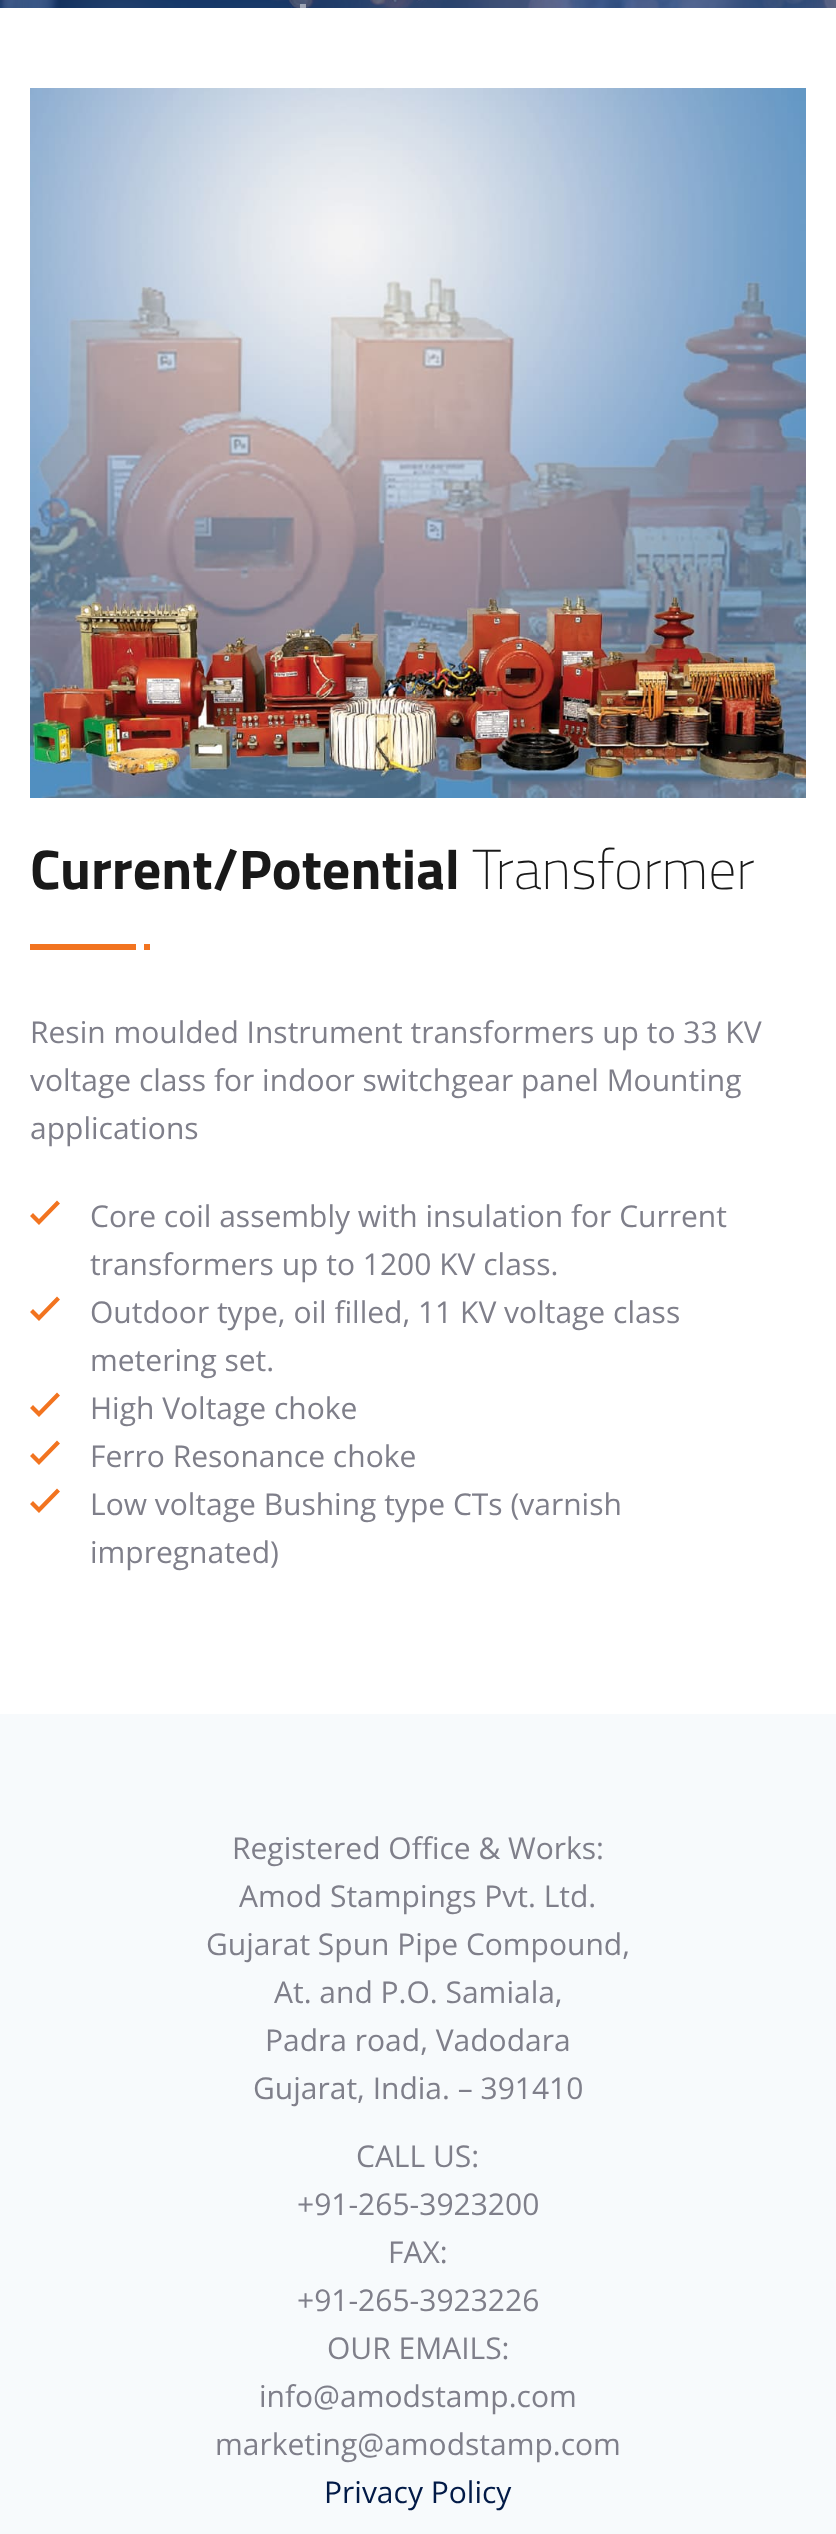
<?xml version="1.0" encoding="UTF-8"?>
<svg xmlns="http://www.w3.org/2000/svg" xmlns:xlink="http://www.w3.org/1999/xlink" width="836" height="2534">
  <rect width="100%" height="100%" fill="#ffffff" />
  <image x="0" y="0" width="836" height="8" xlink:href="image1.png" />
  <image x="0" y="0" width="836" height="8" xlink:href="image2.png" />
  <rect x="300" y="4" width="6" height="4" fill="#ffffff" fill-opacity="0.46" />
  <image x="30" y="88" width="776" height="710" xlink:href="image3.png" />
  <rect x="30" y="944" width="106" height="6" fill="#f27420" />
  <rect x="144" y="944" width="6" height="6" fill="#f27420" />
  <path d="M 39 1219 l -6 -6 l -3 3 l 9 9 l 21 -21.5 l -3 -3 z" fill="#f27420" />
  <path d="M 39 1315 l -6 -6 l -3 3 l 9 9 l 21 -21.5 l -3 -3 z" fill="#f27420" />
  <path d="M 39 1411 l -6 -6 l -3 3 l 9 9 l 21 -21.5 l -3 -3 z" fill="#f27420" />
  <path d="M 39 1459 l -6 -6 l -3 3 l 9 9 l 21 -21.5 l -3 -3 z" fill="#f27420" />
  <path d="M 39 1507 l -6 -6 l -3 3 l 9 9 l 21 -21.5 l -3 -3 z" fill="#f27420" />
  <rect y="1714" width="836" height="820" fill="#f7fafc" />
  <text x="30" y="889" style="font-family: Titillium Web; font-size: 56px; font-weight: bold; fill: #191919">Current/Potential</text>
  <text x="472" y="889" style="font-family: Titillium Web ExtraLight; font-size: 56px; font-weight: 200; fill: #191919">Transformer</text>
  <text x="30" y="1043" style="font-family: Open Sans; font-size: 30px; fill: #7f7f8a">Resin moulded Instrument transformers up to 33 KV</text>
  <text x="30" y="1091" style="font-family: Open Sans; font-size: 30px; fill: #7f7f8a">voltage class for indoor switchgear panel Mounting</text>
  <text x="30" y="1139" style="font-family: Open Sans; font-size: 30px; fill: #7f7f8a">applications</text>
  <text x="90" y="1227" style="font-family: Open Sans; font-size: 30px; fill: #7f7f8a">Core coil assembly with insulation for Current</text>
  <text x="90" y="1275" style="font-family: Open Sans; font-size: 30px; fill: #7f7f8a">transformers up to 1200 KV class.</text>
  <text x="90" y="1323" style="font-family: Open Sans; font-size: 30px; fill: #7f7f8a">Outdoor type, oil filled, 11 KV voltage class</text>
  <text x="90" y="1371" style="font-family: Open Sans; font-size: 30px; fill: #7f7f8a">metering set.</text>
  <text x="90" y="1419" style="font-family: Open Sans; font-size: 30px; fill: #7f7f8a">High Voltage choke</text>
  <text x="90" y="1467" style="font-family: Open Sans; font-size: 30px; fill: #7f7f8a">Ferro Resonance choke</text>
  <text x="90" y="1515" style="font-family: Open Sans; font-size: 30px; fill: #7f7f8a">Low voltage Bushing type CTs (varnish</text>
  <text x="90" y="1563" style="font-family: Open Sans; font-size: 30px; fill: #7f7f8a">impregnated)</text>
  <text x="232" y="1859" style="font-family: Open Sans; font-size: 30px; fill: #7f7f8a">Registered Office &amp; Works:</text>
  <text x="239" y="1907" style="font-family: Open Sans; font-size: 30px; fill: #7f7f8a">Amod Stampings Pvt. Ltd.</text>
  <text x="206" y="1955" style="font-family: Open Sans; font-size: 30px; fill: #7f7f8a">Gujarat Spun Pipe Compound,</text>
  <text x="274" y="2003" style="font-family: Open Sans; font-size: 30px; fill: #7f7f8a">At. and P.O. Samiala,</text>
  <text x="265" y="2051" style="font-family: Open Sans; font-size: 30px; fill: #7f7f8a">Padra road, Vadodara</text>
  <text x="253" y="2099" style="font-family: Open Sans; font-size: 30px; fill: #7f7f8a">Gujarat, India. – 391410</text>
  <text x="356" y="2167" style="font-family: Open Sans; font-size: 30px; fill: #7f7f8a">CALL US:</text>
  <text x="297" y="2215" style="font-family: Open Sans; font-size: 30px; fill: #7f7f8a">+91-265-3923200</text>
  <text x="388" y="2263" style="font-family: Open Sans; font-size: 30px; fill: #7f7f8a">FAX:</text>
  <text x="297" y="2311" style="font-family: Open Sans; font-size: 30px; fill: #7f7f8a">+91-265-3923226</text>
  <text x="327" y="2359" style="font-family: Open Sans; font-size: 30px; fill: #7f7f8a">OUR EMAILS:</text>
  <text x="259" y="2407" style="font-family: Open Sans; font-size: 30px; fill: #7f7f8a">info@amodstamp.com</text>
  <text x="215" y="2455" style="font-family: Open Sans; font-size: 30px; fill: #7f7f8a">marketing@amodstamp.com</text>
  <text x="324" y="2503" style="font-family: Open Sans; font-size: 30px; fill: #021a47">Privacy Policy</text>
</svg>
